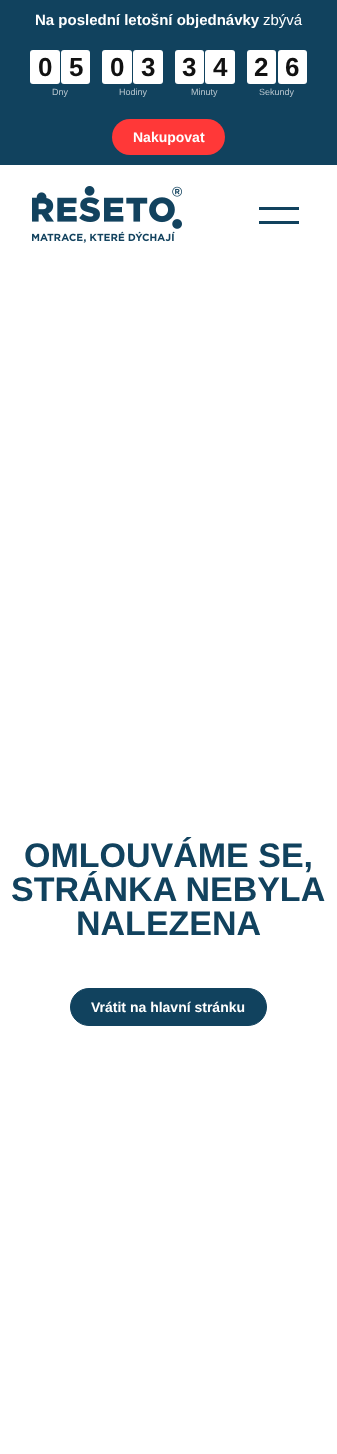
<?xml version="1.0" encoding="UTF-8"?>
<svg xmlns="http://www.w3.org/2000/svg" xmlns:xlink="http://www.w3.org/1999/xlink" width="337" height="1454">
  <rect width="100%" height="100%" fill="#ffffff" />
  <rect width="337" height="165" fill="#11425e" />
  <rect x="30" y="50" width="30" height="34" rx="3" fill="#ffffff" />
  <rect x="61" y="50" width="29" height="34" rx="3" fill="#ffffff" />
  <rect x="102" y="50" width="30" height="34" rx="3" fill="#ffffff" />
  <rect x="133" y="50" width="30" height="34" rx="3" fill="#ffffff" />
  <rect x="175" y="50" width="29" height="34" rx="3" fill="#ffffff" />
  <rect x="205" y="50" width="30" height="34" rx="3" fill="#ffffff" />
  <rect x="247" y="50" width="29" height="34" rx="3" fill="#ffffff" />
  <rect x="278" y="50" width="29" height="34" rx="3" fill="#ffffff" />
  <rect x="112" y="119" width="113" height="36" rx="18" fill="#ff3838" />
  <image x="32" y="186" width="150" height="57" xlink:href="image1.png" />
  <rect x="259" y="207" width="40" height="3" fill="#11425e" />
  <rect x="259" y="221" width="40" height="3" fill="#11425e" />
  <rect x="70.5" y="988.5" width="196" height="37" rx="18.5" fill="#11425e" stroke="#11425e" />
  <text x="35" y="25" style="font-family: Liberation Sans; font-size: 15px; font-weight: bold; fill: #ffffff">Na poslední letošní objednávky</text>
  <text x="263" y="25" style="font-family: Liberation Sans; font-size: 15px; fill: #ffffff">zbývá</text>
  <text x="38" y="76" style="font-family: Liberation Sans; font-size: 26px; font-weight: bold; fill: #111111">0</text>
  <text x="69" y="76" style="font-family: Liberation Sans; font-size: 26px; font-weight: bold; fill: #111111">5</text>
  <text x="52" y="95" style="font-family: Liberation Sans; font-size: 9px; fill: #b8c6cf">Dny</text>
  <text x="110" y="76" style="font-family: Liberation Sans; font-size: 26px; font-weight: bold; fill: #111111">0</text>
  <text x="141" y="76" style="font-family: Liberation Sans; font-size: 26px; font-weight: bold; fill: #111111">3</text>
  <text x="119" y="95" style="font-family: Liberation Sans; font-size: 9px; fill: #b8c6cf">Hodiny</text>
  <text x="182" y="76" style="font-family: Liberation Sans; font-size: 26px; font-weight: bold; fill: #111111">3</text>
  <text x="213" y="76" style="font-family: Liberation Sans; font-size: 26px; font-weight: bold; fill: #111111">4</text>
  <text x="191" y="95" style="font-family: Liberation Sans; font-size: 9px; fill: #b8c6cf">Minuty</text>
  <text x="254" y="76" style="font-family: Liberation Sans; font-size: 26px; font-weight: bold; fill: #111111">2</text>
  <text x="285" y="76" style="font-family: Liberation Sans; font-size: 26px; font-weight: bold; fill: #111111">6</text>
  <text x="259" y="95" style="font-family: Liberation Sans; font-size: 9px; fill: #b8c6cf">Sekundy</text>
  <text x="133" y="142" style="font-family: Liberation Sans; font-size: 14px; font-weight: bold; fill: #ffffff">Nakupovat</text>
  <text x="24" y="867" style="font-family: Liberation Sans; font-size: 34px; font-weight: bold; fill: #11425e">OMLOUVÁME SE,</text>
  <text x="11" y="901" style="font-family: Liberation Sans; font-size: 34px; font-weight: bold; fill: #11425e">STRÁNKA NEBYLA</text>
  <text x="76" y="935" style="font-family: Liberation Sans; font-size: 34px; font-weight: bold; fill: #11425e">NALEZENA</text>
  <text x="91" y="1012" style="font-family: Liberation Sans; font-size: 14px; font-weight: bold; fill: #ffffff">Vrátit na hlavní stránku</text>
</svg>
